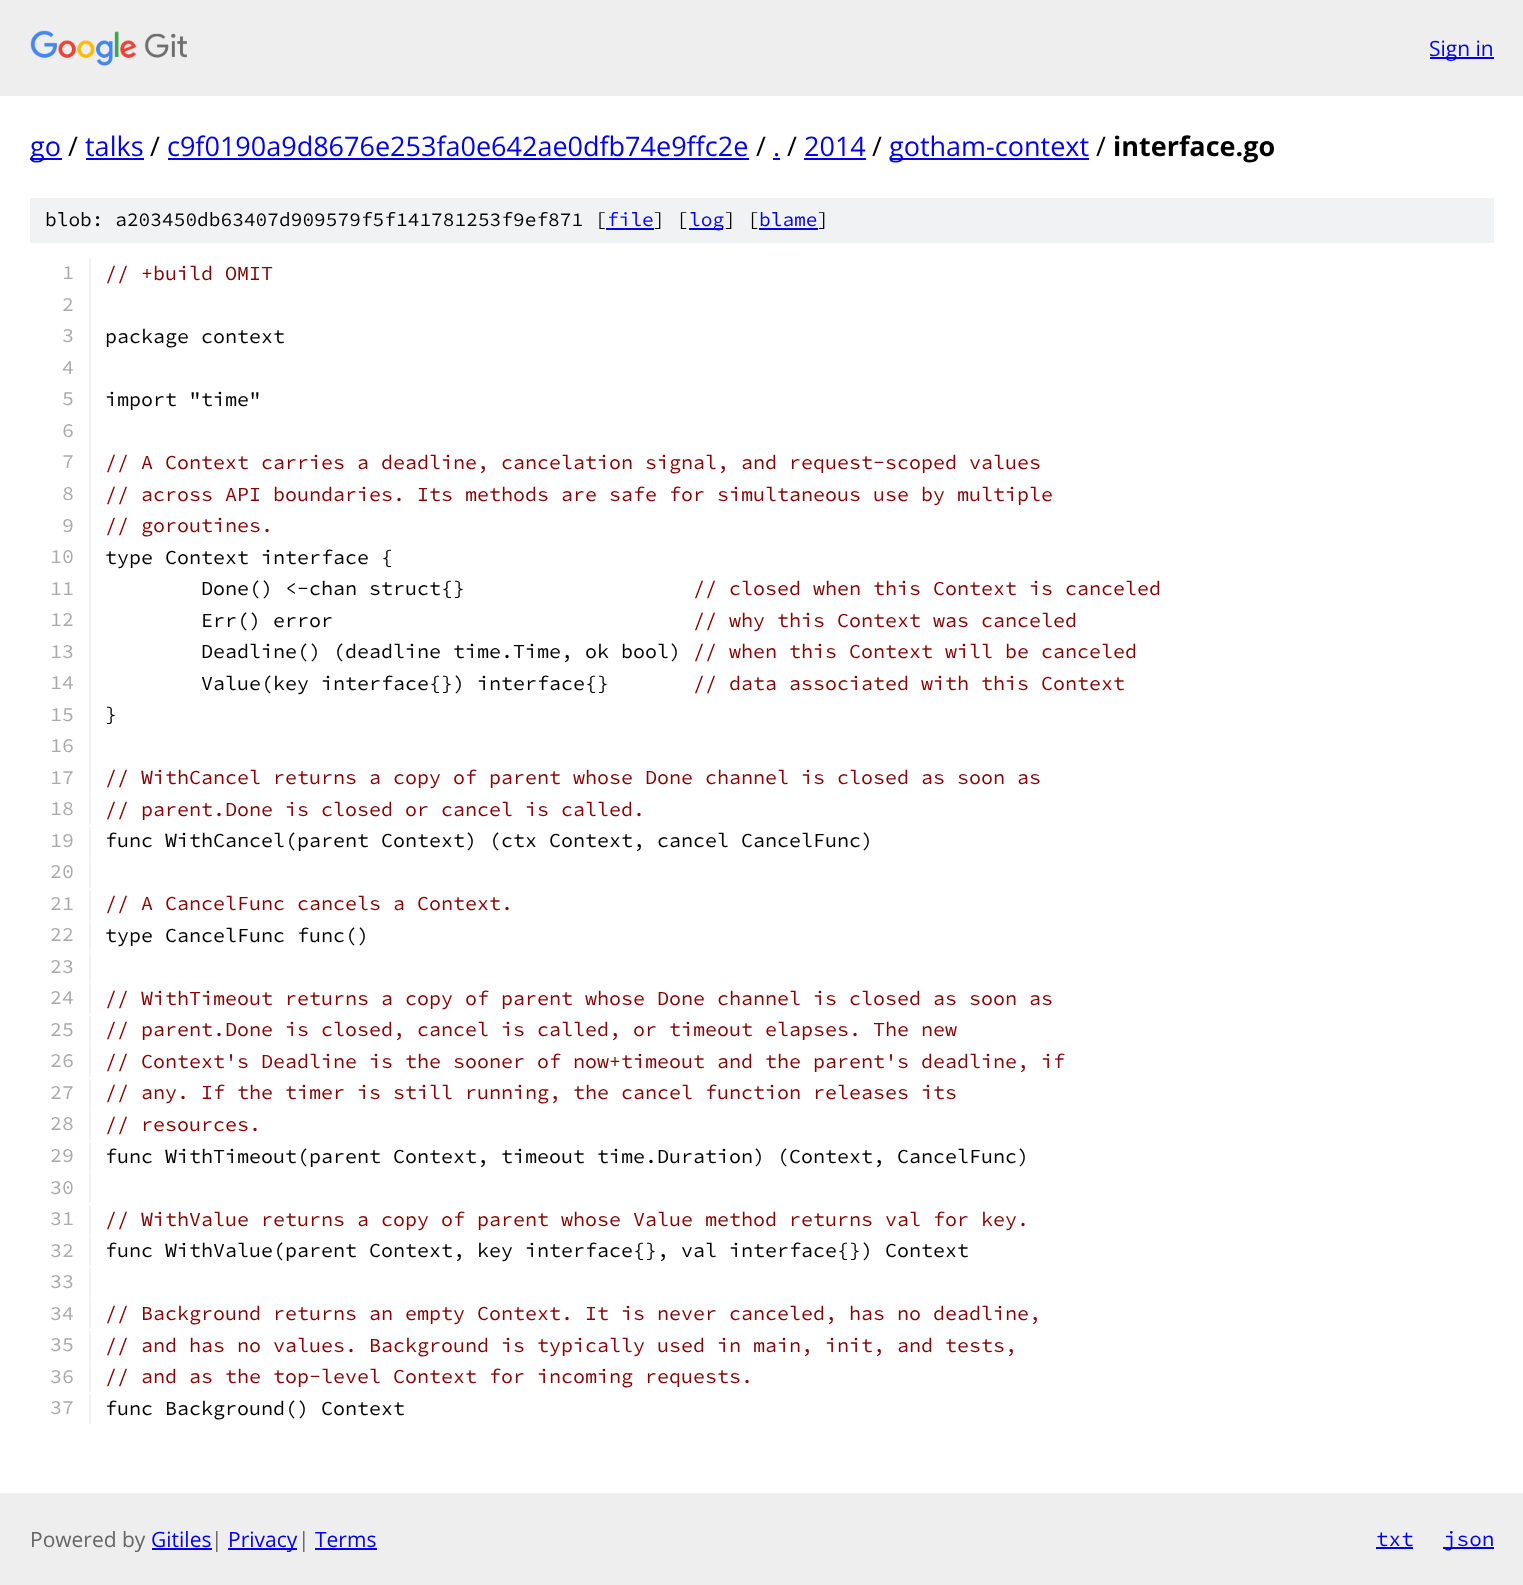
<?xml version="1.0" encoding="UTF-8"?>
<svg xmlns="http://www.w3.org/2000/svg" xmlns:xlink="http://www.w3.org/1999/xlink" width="1523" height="1585">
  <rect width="100%" height="100%" fill="#ffffff" />
  <rect width="1523" height="96" fill="#eeeeee" />
  <image x="30" y="30" width="157" height="36" xlink:href="image1.png" />
  <rect x="1430" y="57" width="64" height="2" fill="#0000ee" />
  <rect x="30" y="158" width="32" height="2" fill="#0000ee" />
  <rect x="86" y="158" width="58" height="2" fill="#0000ee" />
  <rect x="168" y="158" width="581" height="2" fill="#0000ee" />
  <rect x="773" y="158" width="7" height="2" fill="#0000ee" />
  <rect x="804" y="158" width="62" height="2" fill="#0000ee" />
  <rect x="890" y="158" width="199" height="2" fill="#0000ee" />
  <rect x="30" y="198" width="1464" height="45" fill="#f1f2f3" />
  <rect x="606" y="228" width="48" height="2" fill="#0000ee" />
  <rect x="689" y="228" width="34" height="2" fill="#0000ee" />
  <rect x="759" y="228" width="59" height="2" fill="#0000ee" />
  <rect x="89" y="258" width="2" height="536" fill="#f1f2f3" />
  <rect x="89" y="795" width="2" height="30" fill="#f1f2f3" />
  <rect x="89" y="827" width="2" height="30" fill="#f1f2f3" />
  <rect x="89" y="858" width="2" height="30" fill="#f1f2f3" />
  <rect x="89" y="890" width="2" height="30" fill="#f1f2f3" />
  <rect x="89" y="921" width="2" height="30" fill="#f1f2f3" />
  <rect x="89" y="953" width="2" height="30" fill="#f1f2f3" />
  <rect x="89" y="984" width="2" height="30" fill="#f1f2f3" />
  <rect x="89" y="1016" width="2" height="30" fill="#f1f2f3" />
  <rect x="89" y="1047" width="2" height="30" fill="#f1f2f3" />
  <rect x="89" y="1079" width="2" height="30" fill="#f1f2f3" />
  <rect x="89" y="1110" width="2" height="30" fill="#f1f2f3" />
  <rect x="89" y="1142" width="2" height="30" fill="#f1f2f3" />
  <rect x="89" y="1173" width="2" height="30" fill="#f1f2f3" />
  <rect x="89" y="1205" width="2" height="30" fill="#f1f2f3" />
  <rect x="89" y="1236" width="2" height="30" fill="#f1f2f3" />
  <rect x="89" y="1268" width="2" height="30" fill="#f1f2f3" />
  <rect x="89" y="1299" width="2" height="30" fill="#f1f2f3" />
  <rect x="89" y="1331" width="2" height="30" fill="#f1f2f3" />
  <rect x="89" y="1362" width="2" height="30" fill="#f1f2f3" />
  <rect x="89" y="1394" width="2" height="30" fill="#f1f2f3" />
  <rect y="1493" width="1523" height="92" fill="#eeeeee" />
  <rect x="152" y="1548" width="60" height="2" fill="#0000ee" />
  <rect x="228" y="1548" width="69" height="2" fill="#0000ee" />
  <rect x="315" y="1548" width="62" height="2" fill="#0000ee" />
  <rect x="1376" y="1547" width="37" height="2" fill="#0000ee" />
  <rect x="1443" y="1547" width="51" height="2" fill="#0000ee" />
  <text x="1429" y="56" style="font-family: Open Sans; font-size: 21px; fill: #0000ee">Sign in</text>
  <text x="30" y="156" style="font-family: Open Sans; font-size: 27px; fill: #0000ee">go</text>
  <text x="68" y="156" style="font-family: Open Sans; font-size: 27px; fill: #000000">/</text>
  <text x="85" y="156" style="font-family: Open Sans; font-size: 27px; fill: #0000ee">talks</text>
  <text x="150" y="156" style="font-family: Open Sans; font-size: 27px; fill: #000000">/</text>
  <text x="167" y="156" style="font-family: Open Sans; font-size: 27px; fill: #0000ee">c9f0190a9d8676e253fa0e642ae0dfb74e9ffc2e</text>
  <text x="756" y="156" style="font-family: Open Sans; font-size: 27px; fill: #000000">/</text>
  <text x="773" y="156" style="font-family: Open Sans; font-size: 27px; fill: #0000ee">.</text>
  <text x="787" y="156" style="font-family: Open Sans; font-size: 27px; fill: #000000">/</text>
  <text x="804" y="156" style="font-family: Open Sans; font-size: 27px; fill: #0000ee">2014</text>
  <text x="872" y="156" style="font-family: Open Sans; font-size: 27px; fill: #000000">/</text>
  <text x="889" y="156" style="font-family: Open Sans; font-size: 27px; fill: #0000ee">gotham-context</text>
  <text x="1096" y="156" style="font-family: Open Sans; font-size: 27px; fill: #000000">/</text>
  <text x="1113" y="156" style="font-family: Open Sans; font-size: 27px; font-weight: bold; fill: #000000">interface.go</text>
  <text x="45" y="226" style="font-family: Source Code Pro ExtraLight; font-size: 19.5px; font-weight: 200; fill: #000000">blob: a203450db63407d909579f5f141781253f9ef871 [</text>
  <text x="607" y="226" style="font-family: Source Code Pro ExtraLight; font-size: 19.5px; font-weight: 200; fill: #0000ee">file</text>
  <text x="653" y="226" style="font-family: Source Code Pro ExtraLight; font-size: 19.5px; font-weight: 200; fill: #000000">] [</text>
  <text x="689" y="226" style="font-family: Source Code Pro ExtraLight; font-size: 19.5px; font-weight: 200; fill: #0000ee">log</text>
  <text x="724" y="226" style="font-family: Source Code Pro ExtraLight; font-size: 19.5px; font-weight: 200; fill: #000000">] [</text>
  <text x="759" y="226" style="font-family: Source Code Pro ExtraLight; font-size: 19.5px; font-weight: 200; fill: #0000ee">blame</text>
  <text x="817" y="226" style="font-family: Source Code Pro ExtraLight; font-size: 19.5px; font-weight: 200; fill: #000000">]</text>
  <text x="62" y="279" style="font-family: Source Code Pro ExtraLight; font-size: 20px; font-weight: 200; fill: #aaaaaa">1</text>
  <text x="105" y="280" style="font-family: Source Code Pro ExtraLight; font-size: 20px; font-weight: 200; fill: #880000">// +build OMIT</text>
  <text x="62" y="311" style="font-family: Source Code Pro ExtraLight; font-size: 20px; font-weight: 200; fill: #aaaaaa">2</text>
  <text x="62" y="342" style="font-family: Source Code Pro ExtraLight; font-size: 20px; font-weight: 200; fill: #aaaaaa">3</text>
  <text x="105" y="343" style="font-family: Source Code Pro ExtraLight; font-size: 20px; font-weight: 200; fill: #000000">package context</text>
  <text x="62" y="374" style="font-family: Source Code Pro ExtraLight; font-size: 20px; font-weight: 200; fill: #aaaaaa">4</text>
  <text x="62" y="405" style="font-family: Source Code Pro ExtraLight; font-size: 20px; font-weight: 200; fill: #aaaaaa">5</text>
  <text x="105" y="406" style="font-family: Source Code Pro ExtraLight; font-size: 20px; font-weight: 200; fill: #000000">import "time"</text>
  <text x="62" y="437" style="font-family: Source Code Pro ExtraLight; font-size: 20px; font-weight: 200; fill: #aaaaaa">6</text>
  <text x="62" y="468" style="font-family: Source Code Pro ExtraLight; font-size: 20px; font-weight: 200; fill: #aaaaaa">7</text>
  <text x="105" y="469" style="font-family: Source Code Pro ExtraLight; font-size: 20px; font-weight: 200; fill: #880000">// A Context carries a deadline, cancelation signal, and request-scoped values</text>
  <text x="62" y="500" style="font-family: Source Code Pro ExtraLight; font-size: 20px; font-weight: 200; fill: #aaaaaa">8</text>
  <text x="105" y="501" style="font-family: Source Code Pro ExtraLight; font-size: 20px; font-weight: 200; fill: #880000">// across API boundaries. Its methods are safe for simultaneous use by multiple</text>
  <text x="62" y="532" style="font-family: Source Code Pro ExtraLight; font-size: 20px; font-weight: 200; fill: #aaaaaa">9</text>
  <text x="105" y="532" style="font-family: Source Code Pro ExtraLight; font-size: 20px; font-weight: 200; fill: #880000">// goroutines.</text>
  <text x="50" y="563" style="font-family: Source Code Pro ExtraLight; font-size: 20px; font-weight: 200; fill: #aaaaaa">10</text>
  <text x="105" y="564" style="font-family: Source Code Pro ExtraLight; font-size: 20px; font-weight: 200; fill: #000000">type Context interface {</text>
  <text x="50" y="595" style="font-family: Source Code Pro ExtraLight; font-size: 20px; font-weight: 200; fill: #aaaaaa">11</text>
  <text x="201" y="595" style="font-family: Source Code Pro ExtraLight; font-size: 20px; font-weight: 200; fill: #000000">Done() &lt;-chan struct{}</text>
  <text x="693" y="595" style="font-family: Source Code Pro ExtraLight; font-size: 20px; font-weight: 200; fill: #880000">// closed when this Context is canceled</text>
  <text x="50" y="626" style="font-family: Source Code Pro ExtraLight; font-size: 20px; font-weight: 200; fill: #aaaaaa">12</text>
  <text x="201" y="627" style="font-family: Source Code Pro ExtraLight; font-size: 20px; font-weight: 200; fill: #000000">Err() error</text>
  <text x="693" y="627" style="font-family: Source Code Pro ExtraLight; font-size: 20px; font-weight: 200; fill: #880000">// why this Context was canceled</text>
  <text x="50" y="658" style="font-family: Source Code Pro ExtraLight; font-size: 20px; font-weight: 200; fill: #aaaaaa">13</text>
  <text x="201" y="658" style="font-family: Source Code Pro ExtraLight; font-size: 20px; font-weight: 200; fill: #000000">Deadline() (deadline time.Time, ok bool)</text>
  <text x="693" y="658" style="font-family: Source Code Pro ExtraLight; font-size: 20px; font-weight: 200; fill: #880000">// when this Context will be canceled</text>
  <text x="50" y="689" style="font-family: Source Code Pro ExtraLight; font-size: 20px; font-weight: 200; fill: #aaaaaa">14</text>
  <text x="201" y="690" style="font-family: Source Code Pro ExtraLight; font-size: 20px; font-weight: 200; fill: #000000">Value(key interface{}) interface{}</text>
  <text x="693" y="690" style="font-family: Source Code Pro ExtraLight; font-size: 20px; font-weight: 200; fill: #880000">// data associated with this Context</text>
  <text x="50" y="721" style="font-family: Source Code Pro ExtraLight; font-size: 20px; font-weight: 200; fill: #aaaaaa">15</text>
  <text x="105" y="721" style="font-family: Source Code Pro ExtraLight; font-size: 20px; font-weight: 200; fill: #000000">}</text>
  <text x="50" y="752" style="font-family: Source Code Pro ExtraLight; font-size: 20px; font-weight: 200; fill: #aaaaaa">16</text>
  <text x="50" y="784" style="font-family: Source Code Pro ExtraLight; font-size: 20px; font-weight: 200; fill: #aaaaaa">17</text>
  <text x="105" y="784" style="font-family: Source Code Pro ExtraLight; font-size: 20px; font-weight: 200; fill: #880000">// WithCancel returns a copy of parent whose Done channel is closed as soon as</text>
  <text x="50" y="815" style="font-family: Source Code Pro ExtraLight; font-size: 20px; font-weight: 200; fill: #aaaaaa">18</text>
  <text x="105" y="816" style="font-family: Source Code Pro ExtraLight; font-size: 20px; font-weight: 200; fill: #880000">// parent.Done is closed or cancel is called.</text>
  <text x="50" y="847" style="font-family: Source Code Pro ExtraLight; font-size: 20px; font-weight: 200; fill: #aaaaaa">19</text>
  <text x="105" y="847" style="font-family: Source Code Pro ExtraLight; font-size: 20px; font-weight: 200; fill: #000000">func WithCancel(parent Context) (ctx Context, cancel CancelFunc)</text>
  <text x="50" y="878" style="font-family: Source Code Pro ExtraLight; font-size: 20px; font-weight: 200; fill: #aaaaaa">20</text>
  <text x="50" y="910" style="font-family: Source Code Pro ExtraLight; font-size: 20px; font-weight: 200; fill: #aaaaaa">21</text>
  <text x="105" y="910" style="font-family: Source Code Pro ExtraLight; font-size: 20px; font-weight: 200; fill: #880000">// A CancelFunc cancels a Context.</text>
  <text x="50" y="941" style="font-family: Source Code Pro ExtraLight; font-size: 20px; font-weight: 200; fill: #aaaaaa">22</text>
  <text x="105" y="942" style="font-family: Source Code Pro ExtraLight; font-size: 20px; font-weight: 200; fill: #000000">type CancelFunc func()</text>
  <text x="50" y="973" style="font-family: Source Code Pro ExtraLight; font-size: 20px; font-weight: 200; fill: #aaaaaa">23</text>
  <text x="50" y="1004" style="font-family: Source Code Pro ExtraLight; font-size: 20px; font-weight: 200; fill: #aaaaaa">24</text>
  <text x="105" y="1005" style="font-family: Source Code Pro ExtraLight; font-size: 20px; font-weight: 200; fill: #880000">// WithTimeout returns a copy of parent whose Done channel is closed as soon as</text>
  <text x="50" y="1036" style="font-family: Source Code Pro ExtraLight; font-size: 20px; font-weight: 200; fill: #aaaaaa">25</text>
  <text x="105" y="1036" style="font-family: Source Code Pro ExtraLight; font-size: 20px; font-weight: 200; fill: #880000">// parent.Done is closed, cancel is called, or timeout elapses. The new</text>
  <text x="50" y="1067" style="font-family: Source Code Pro ExtraLight; font-size: 20px; font-weight: 200; fill: #aaaaaa">26</text>
  <text x="105" y="1068" style="font-family: Source Code Pro ExtraLight; font-size: 20px; font-weight: 200; fill: #880000">// Context's Deadline is the sooner of now+timeout and the parent's deadline, if</text>
  <text x="50" y="1099" style="font-family: Source Code Pro ExtraLight; font-size: 20px; font-weight: 200; fill: #aaaaaa">27</text>
  <text x="105" y="1099" style="font-family: Source Code Pro ExtraLight; font-size: 20px; font-weight: 200; fill: #880000">// any. If the timer is still running, the cancel function releases its</text>
  <text x="50" y="1130" style="font-family: Source Code Pro ExtraLight; font-size: 20px; font-weight: 200; fill: #aaaaaa">28</text>
  <text x="105" y="1131" style="font-family: Source Code Pro ExtraLight; font-size: 20px; font-weight: 200; fill: #880000">// resources.</text>
  <text x="50" y="1162" style="font-family: Source Code Pro ExtraLight; font-size: 20px; font-weight: 200; fill: #aaaaaa">29</text>
  <text x="105" y="1163" style="font-family: Source Code Pro ExtraLight; font-size: 20px; font-weight: 200; fill: #000000">func WithTimeout(parent Context, timeout time.Duration) (Context, CancelFunc)</text>
  <text x="50" y="1194" style="font-family: Source Code Pro ExtraLight; font-size: 20px; font-weight: 200; fill: #aaaaaa">30</text>
  <text x="50" y="1225" style="font-family: Source Code Pro ExtraLight; font-size: 20px; font-weight: 200; fill: #aaaaaa">31</text>
  <text x="105" y="1226" style="font-family: Source Code Pro ExtraLight; font-size: 20px; font-weight: 200; fill: #880000">// WithValue returns a copy of parent whose Value method returns val for key.</text>
  <text x="50" y="1257" style="font-family: Source Code Pro ExtraLight; font-size: 20px; font-weight: 200; fill: #aaaaaa">32</text>
  <text x="105" y="1257" style="font-family: Source Code Pro ExtraLight; font-size: 20px; font-weight: 200; fill: #000000">func WithValue(parent Context, key interface{}, val interface{}) Context</text>
  <text x="50" y="1288" style="font-family: Source Code Pro ExtraLight; font-size: 20px; font-weight: 200; fill: #aaaaaa">33</text>
  <text x="50" y="1320" style="font-family: Source Code Pro ExtraLight; font-size: 20px; font-weight: 200; fill: #aaaaaa">34</text>
  <text x="105" y="1320" style="font-family: Source Code Pro ExtraLight; font-size: 20px; font-weight: 200; fill: #880000">// Background returns an empty Context. It is never canceled, has no deadline,</text>
  <text x="50" y="1351" style="font-family: Source Code Pro ExtraLight; font-size: 20px; font-weight: 200; fill: #aaaaaa">35</text>
  <text x="105" y="1352" style="font-family: Source Code Pro ExtraLight; font-size: 20px; font-weight: 200; fill: #880000">// and has no values. Background is typically used in main, init, and tests,</text>
  <text x="50" y="1383" style="font-family: Source Code Pro ExtraLight; font-size: 20px; font-weight: 200; fill: #aaaaaa">36</text>
  <text x="105" y="1383" style="font-family: Source Code Pro ExtraLight; font-size: 20px; font-weight: 200; fill: #880000">// and as the top-level Context for incoming requests.</text>
  <text x="50" y="1414" style="font-family: Source Code Pro ExtraLight; font-size: 20px; font-weight: 200; fill: #aaaaaa">37</text>
  <text x="105" y="1415" style="font-family: Source Code Pro ExtraLight; font-size: 20px; font-weight: 200; fill: #000000">func Background() Context</text>
  <text x="30" y="1547" style="font-family: Open Sans; font-size: 21px; fill: #666666">Powered by</text>
  <text x="151" y="1547" style="font-family: Open Sans; font-size: 21px; fill: #0000ee">Gitiles</text>
  <text x="211" y="1547" style="font-family: Open Sans; font-size: 21px; fill: #666666">|</text>
  <text x="228" y="1547" style="font-family: Open Sans; font-size: 21px; fill: #0000ee">Privacy</text>
  <text x="298" y="1547" style="font-family: Open Sans; font-size: 21px; fill: #666666">|</text>
  <text x="315" y="1547" style="font-family: Open Sans; font-size: 21px; fill: #0000ee">Terms</text>
  <text x="1376" y="1546" style="font-family: Source Code Pro ExtraLight; font-size: 21px; font-weight: 200; fill: #0000ee">txt</text>
  <text x="1444" y="1546" style="font-family: Source Code Pro ExtraLight; font-size: 21px; font-weight: 200; fill: #0000ee">json</text>
</svg>
